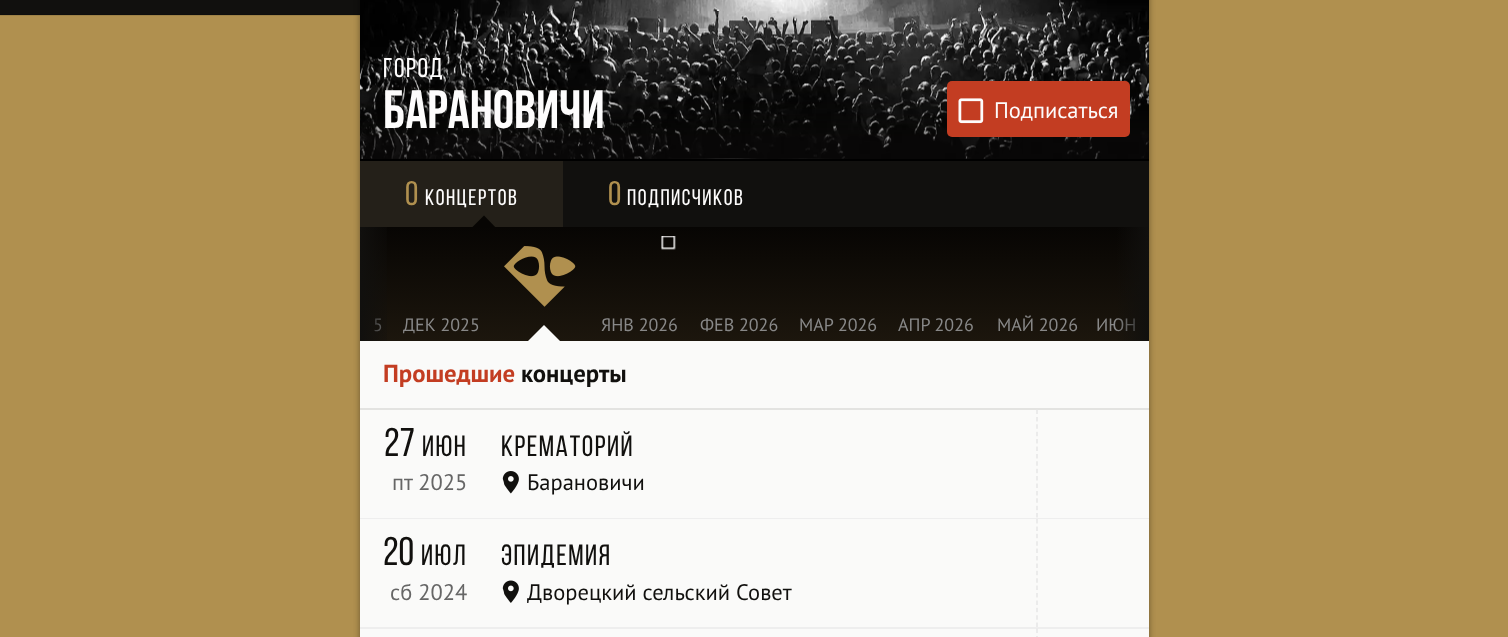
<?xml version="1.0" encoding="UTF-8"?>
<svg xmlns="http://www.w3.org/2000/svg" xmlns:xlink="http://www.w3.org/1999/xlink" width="1508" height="637">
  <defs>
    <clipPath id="clip1"><rect x="360" y="161" width="789" height="66" /></clipPath>
    <linearGradient id="g1" gradientUnits="userSpaceOnUse" x1="755" y1="226" x2="755" y2="341"><stop offset="0" stop-color="#070503" /><stop offset="1" stop-color="#1c160d" /></linearGradient>
    <clipPath id="clip2"><rect x="360" y="227" width="789" height="114" /></clipPath>
    <linearGradient id="g2" gradientUnits="userSpaceOnUse" x1="360" y1="284" x2="395" y2="284"><stop offset="0" stop-color="#11100e" /><stop offset="1" stop-color="#11100e" stop-opacity="0" /></linearGradient>
    <linearGradient id="g3" gradientUnits="userSpaceOnUse" x1="1116" y1="284" x2="1149" y2="284"><stop offset="0" stop-color="#11100e" stop-opacity="0" /><stop offset="1" stop-color="#11100e" /></linearGradient>
  </defs>
  <rect width="100%" height="100%" fill="#b0904f" />
  <rect y="15" width="360" height="1" fill="#9e8247" />
  <rect width="360" height="14" fill="#11100e" />
  <rect y="14" width="360" height="1" fill="#0f0e0d" />
  <rect x="360" y="-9" width="789" height="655" fill="#000000" fill-opacity="0.4" filter="blur(3px)" />
  <rect x="360" y="341" width="789" height="296" fill="#fafaf9" />
  <image x="360" y="0" width="789" height="159" xlink:href="image1.png" />
  <rect x="360" y="159" width="789" height="2" fill="#000000" />
  <rect x="947" y="81" width="183" height="56" rx="5" fill="#c33d22" />
  <image x="958" y="98" width="26" height="26" xlink:href="image2.png" />
  <rect x="563" y="161" width="586" height="66" fill="#11100e" />
  <rect x="360" y="161" width="203" height="66" fill="#242019" />
  <g clip-path="url(#clip1)">
    <path d="M 468 231.5 l 16 -16 l 15.5 16 z" fill="#070503" />
  </g>
  <rect x="360" y="227" width="789" height="114" fill="url(#g1)" />
  <image x="504" y="246" width="72" height="61" xlink:href="image3.png" />
  <g clip-path="url(#clip2)">
    <path d="M 544 325 l 21 21 l -21 22 l -21 -22 z" fill="#fafaf9" />
  </g>
  <image x="661" y="236" width="15" height="14" xlink:href="image4.png" />
  <rect x="360" y="408" width="789" height="2" fill="#e3e3e1" />
  <rect x="360" y="518" width="789" height="1" fill="#eeeeee" />
  <image x="502" y="471" width="17" height="23" xlink:href="image5.png" />
  <path d="M 1037 409.5 v 108" fill="none" stroke="#e6e6e6" stroke-width="1.5" stroke-dasharray="4.5 2.9" />
  <rect x="360" y="627" width="789" height="2" fill="#eeeeee" />
  <image x="502" y="580" width="17" height="23" xlink:href="image6.png" />
  <path d="M 1037 519 v 108" fill="none" stroke="#e6e6e6" stroke-width="1.5" stroke-dasharray="4.5 2.9" />
  <path d="M 1037 628.5 v 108" fill="none" stroke="#e6e6e6" stroke-width="1.5" stroke-dasharray="4.5 2.9" />
  <text x="383" y="77" style="font-family: Bebas Neue; font-size: 27px; letter-spacing: 1.5px; fill: #fdfcfc">Город</text>
  <text x="383" y="128" style="font-family: Bebas Neue; font-size: 54px; font-weight: bold; fill: #fdfcfc">Барановичи</text>
  <text x="994" y="118" style="font-family: PT Sans; font-size: 22.5px; fill: #fdfcfc">Подписаться</text>
  <text x="405" y="205" style="font-family: Bebas Neue; font-size: 34px; letter-spacing: 1.5px; fill: #b0904f">0</text>
  <text x="425" y="205" style="font-family: Bebas Neue; font-size: 22.5px; letter-spacing: 1.5px; fill: #fdfcfc">Концертов</text>
  <text x="608" y="205" style="font-family: Bebas Neue; font-size: 34px; letter-spacing: 1.5px; fill: #b0904f">0</text>
  <text x="627" y="205" style="font-family: Bebas Neue; font-size: 22.5px; letter-spacing: 1.5px; fill: #fdfcfc">Подписчиков</text>
  <text x="373" y="331" style="font-family: PT Sans; font-size: 18px; fill: #888888">5</text>
  <rect x="360" y="227" width="27" height="114" fill="url(#g2)" />
  <text x="403" y="331" style="font-family: PT Sans; font-size: 18px; fill: #888888">ДЕК 2025</text>
  <text x="601" y="331" style="font-family: PT Sans; font-size: 18px; fill: #888888">ЯНВ 2026</text>
  <text x="700" y="331" style="font-family: PT Sans; font-size: 18px; fill: #888888">ФЕВ 2026</text>
  <text x="799" y="331" style="font-family: PT Sans; font-size: 18px; fill: #888888">МАР 2026</text>
  <text x="898" y="331" style="font-family: PT Sans; font-size: 18px; fill: #888888">АПР 2026</text>
  <text x="997" y="331" style="font-family: PT Sans; font-size: 18px; fill: #888888">МАЙ 2026</text>
  <text x="1096" y="331" style="font-family: PT Sans; font-size: 18px; fill: #888888">ИЮН</text>
  <rect x="1117" y="227" width="32" height="114" fill="url(#g3)" />
  <text x="383" y="382" style="font-family: PT Sans; font-size: 24.75px; font-weight: bold; fill: #c33d22">Прошедшие</text>
  <text x="521" y="382" style="font-family: PT Sans; font-size: 24.75px; font-weight: bold; fill: #11100e">концерты</text>
  <text x="384" y="456" style="font-family: Bebas Neue; font-size: 40px; fill: #11100e">27</text>
  <text x="422" y="456" style="font-family: Bebas Neue; font-size: 29.25px; letter-spacing: 1.5px; fill: #11100e">июн</text>
  <text x="392" y="490" style="font-family: PT Sans; font-size: 22.5px; fill: #666666">пт 2025</text>
  <text x="501" y="456" style="font-family: Bebas Neue; font-size: 29.25px; letter-spacing: 1.5px; fill: #11100e">Крематорий</text>
  <text x="527" y="490" style="font-family: PT Sans; font-size: 22.5px; fill: #11100e">Барановичи</text>
  <text x="383" y="565" style="font-family: Bebas Neue; font-size: 40px; fill: #11100e">20</text>
  <text x="421" y="565" style="font-family: Bebas Neue; font-size: 29.25px; letter-spacing: 1.5px; fill: #11100e">июл</text>
  <text x="390" y="600" style="font-family: PT Sans; font-size: 22.5px; fill: #666666">сб 2024</text>
  <text x="501" y="565" style="font-family: Bebas Neue; font-size: 29.25px; letter-spacing: 1.5px; fill: #11100e">Эпидемия</text>
  <text x="527" y="600" style="font-family: PT Sans; font-size: 22.5px; fill: #11100e">Дворецкий сельский Совет</text>
</svg>
